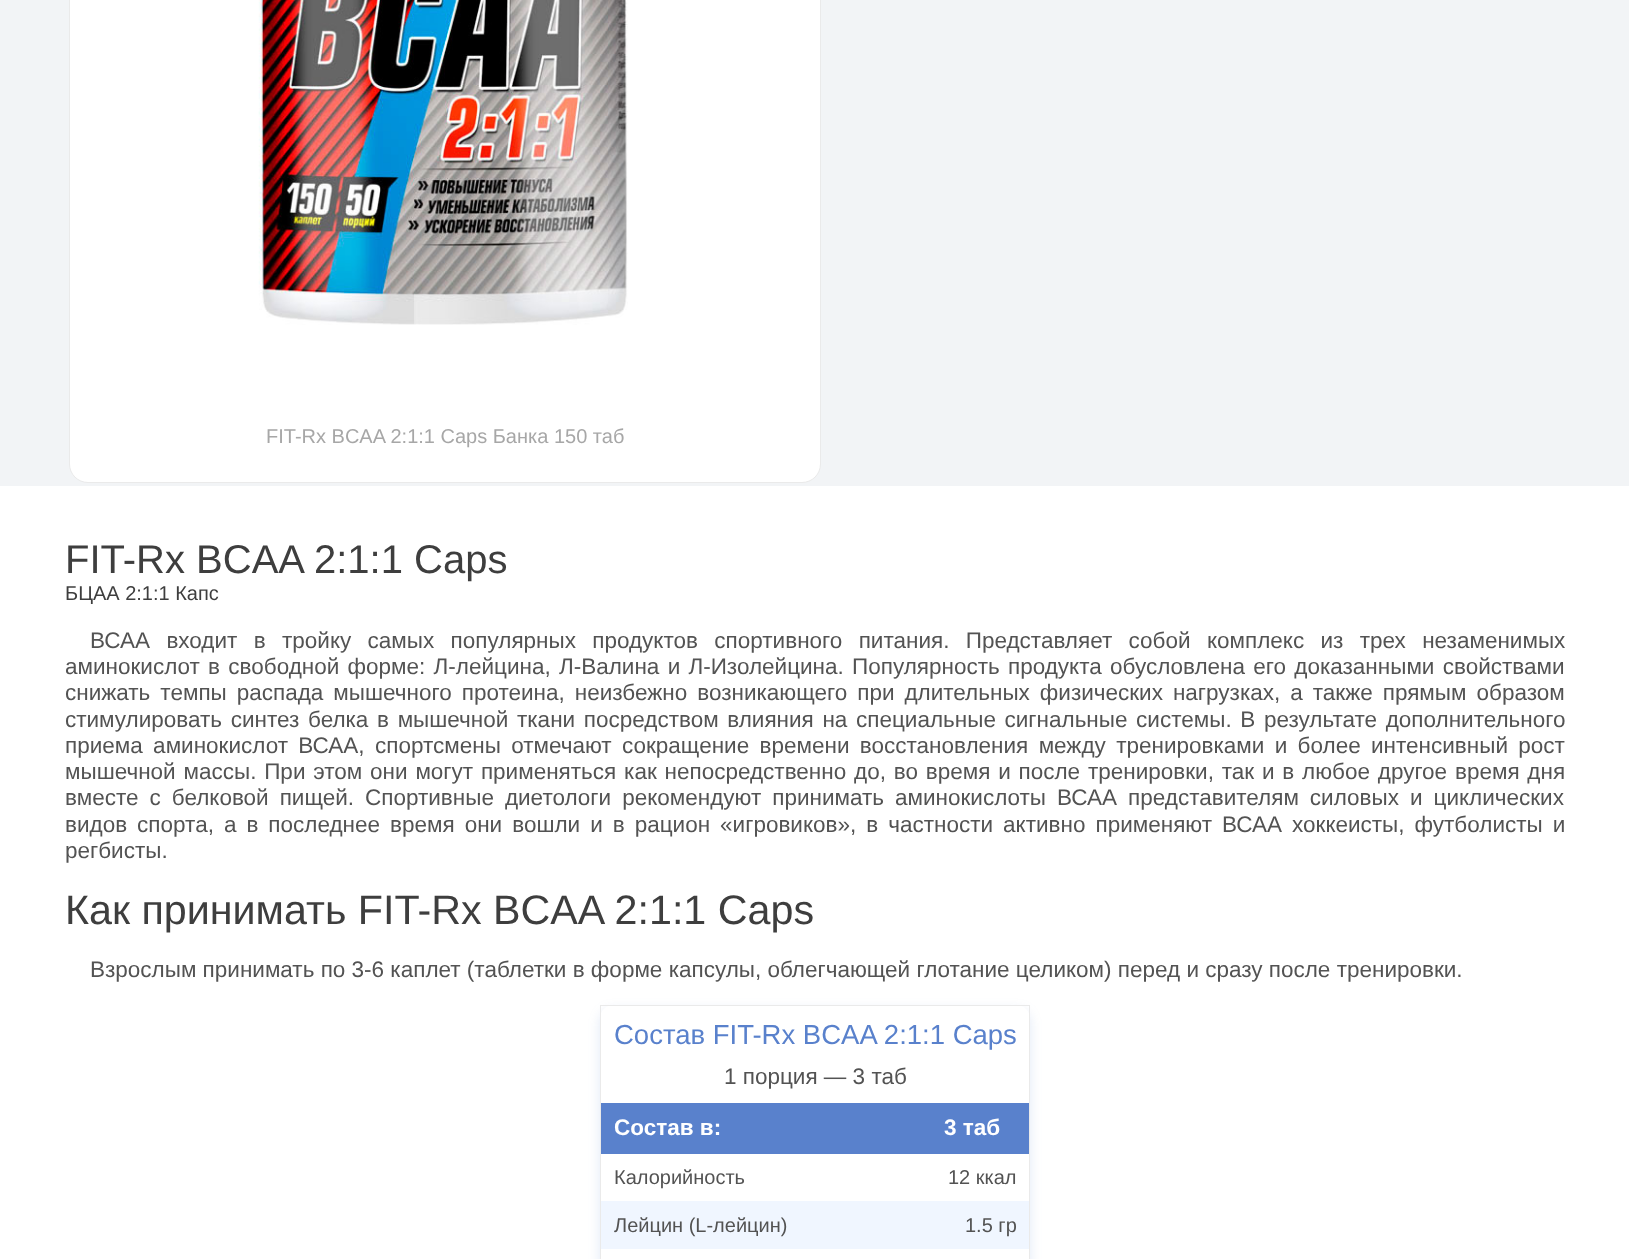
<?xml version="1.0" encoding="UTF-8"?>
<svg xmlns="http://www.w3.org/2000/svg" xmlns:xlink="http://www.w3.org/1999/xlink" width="1629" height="1259">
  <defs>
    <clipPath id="clip1"><path d="M 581 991 h 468 v 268 h -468 z m 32 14 h 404 c 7 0 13 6 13 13 v 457 c 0 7 -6 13 -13 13 h -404 c -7 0 -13 -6 -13 -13 v -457 c 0 -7 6 -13 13 -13 z" clip-rule="evenodd" /></clipPath>
  </defs>
  <rect width="100%" height="100%" fill="#f2f4f6" />
  <rect x="69.5" y="-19.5" width="751" height="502" rx="18.5" fill="#ffffff" stroke="#eaeaea" />
  <image x="258" y="0" width="370" height="325" xlink:href="image1.png" />
  <rect y="486" width="1629" height="773" fill="#ffffff" />
  <g clip-path="url(#clip1)">
    <rect x="600" y="1010" width="430" height="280" rx="13" fill="#5981cc" fill-opacity="0.18" filter="blur(6px)" />
  </g>
  <rect x="600" y="1005" width="430" height="1" fill="#eaeaea" />
  <rect x="1029" y="1005" width="1" height="254" fill="#eaeaea" />
  <rect x="600" y="1005" width="1" height="254" fill="#eaeaea" />
  <rect x="601" y="1103" width="428" height="51" fill="#5981cc" />
  <rect x="601" y="1201" width="428" height="48" fill="#f0f6ff" />
  <text x="266" y="443" style="font-family: Liberation Sans; font-size: 20px; fill: #a7a7a7">FIT-Rx BCAA 2:1:1 Caps Банка 150 таб</text>
  <text x="65" y="573" style="font-family: Liberation Sans; font-size: 40px; fill: #3e3e3e">FIT-Rx BCAA 2:1:1 Caps</text>
  <text x="65" y="600" style="font-family: Liberation Sans; font-size: 20px; fill: #3e3e3e">БЦАА 2:1:1 Капс</text>
  <text x="90" y="648" word-spacing="10.1" style="font-family: Liberation Sans; font-size: 22.5px; fill: #535353">ВСАА входит в тройку самых популярных продуктов спортивного питания. Представляет собой комплекс из трех незаменимых</text>
  <text x="65" y="674" word-spacing="2" style="font-family: Liberation Sans; font-size: 22.5px; fill: #535353">аминокислот в свободной форме: Л-лейцина, Л-Валина и Л-Изолейцина. Популярность продукта обусловлена его доказанными свойствами</text>
  <text x="65" y="700" word-spacing="3.75" style="font-family: Liberation Sans; font-size: 22.5px; fill: #535353">снижать темпы распада мышечного протеина, неизбежно возникающего при длительных физических нагрузках, а также прямым образом</text>
  <text x="65" y="727" word-spacing="2.4" style="font-family: Liberation Sans; font-size: 22.5px; fill: #535353">стимулировать синтез белка в мышечной ткани посредством влияния на специальные сигнальные системы. В результате дополнительного</text>
  <text x="65" y="753" word-spacing="4.1" style="font-family: Liberation Sans; font-size: 22.5px; fill: #535353">приема аминокислот ВСАА, спортсмены отмечают сокращение времени восстановления между тренировками и более интенсивный рост</text>
  <text x="65" y="779" word-spacing="1.55" style="font-family: Liberation Sans; font-size: 22.5px; fill: #535353">мышечной массы. При этом они могут применяться как непосредственно до, во время и после тренировки, так и в любое другое время дня</text>
  <text x="65" y="805" word-spacing="4.75" style="font-family: Liberation Sans; font-size: 22.5px; fill: #535353">вместе с белковой пищей. Спортивные диетологи рекомендуют принимать аминокислоты ВСАА представителям силовых и циклических</text>
  <text x="65" y="832" word-spacing="3.75" style="font-family: Liberation Sans; font-size: 22.5px; fill: #535353">видов спорта, а в последнее время они вошли и в рацион «игровиков», в частности активно применяют ВСАА хоккеисты, футболисты и</text>
  <text x="65" y="858" style="font-family: Liberation Sans; font-size: 22.5px; fill: #535353">регбисты.</text>
  <text x="65" y="924" style="font-family: Liberation Sans; font-size: 41.25px; fill: #3e3e3e">Как принимать FIT-Rx BCAA 2:1:1 Caps</text>
  <text x="90" y="977" style="font-family: Liberation Sans; font-size: 22.5px; fill: #535353">Взрослым принимать по 3-6 каплет (таблетки в форме капсулы, облегчающей глотание целиком) перед и сразу после тренировки.</text>
  <text x="614" y="1044" style="font-family: Liberation Sans; font-size: 27.5px; fill: #5981cc">Состав FIT-Rx BCAA 2:1:1 Caps</text>
  <text x="724" y="1084" style="font-family: Liberation Sans; font-size: 22.5px; fill: #535353">1 порция — 3 таб</text>
  <text x="614" y="1135" style="font-family: Liberation Sans; font-size: 22.5px; font-weight: bold; fill: #ffffff">Состав в:</text>
  <text x="944" y="1135" style="font-family: Liberation Sans; font-size: 22.5px; font-weight: bold; fill: #ffffff">3 таб</text>
  <text x="614" y="1184" style="font-family: Liberation Sans; font-size: 20px; fill: #535353">Калорийность</text>
  <text x="948" y="1184" style="font-family: Liberation Sans; font-size: 20px; fill: #535353">12 ккал</text>
  <text x="614" y="1232" style="font-family: Liberation Sans; font-size: 20px; fill: #535353">Лейцин (L-лейцин)</text>
  <text x="965" y="1232" style="font-family: Liberation Sans; font-size: 20px; fill: #535353">1.5 гр</text>
</svg>
